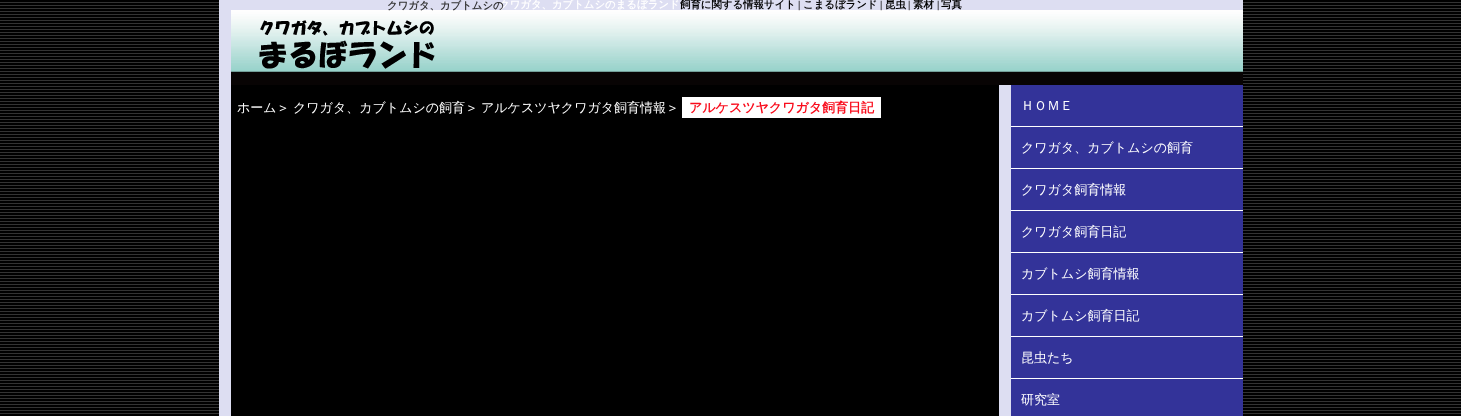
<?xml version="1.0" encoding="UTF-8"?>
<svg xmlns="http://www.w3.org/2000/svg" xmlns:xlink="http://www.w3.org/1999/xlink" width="1461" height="416">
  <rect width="100%" height="100%" fill="#ffffff" />
  <image x="0" y="0" width="1461" height="416" xlink:href="image1.png" />
  <rect x="219" width="1024" height="416" fill="#dddef2" />
  <image x="231" y="10" width="1012" height="75" xlink:href="image2.png" />
  <rect x="231" y="85" width="768" height="331" fill="#000000" />
  <rect x="682" y="97" width="199" height="21" fill="#ffffff" />
  <rect x="1011" y="85" width="232" height="41" fill="#333399" />
  <rect x="1011" y="126" width="232" height="1" fill="#ffffff" />
  <rect x="1011" y="127" width="232" height="41" fill="#333399" />
  <rect x="1011" y="168" width="232" height="1" fill="#ffffff" />
  <rect x="1011" y="169" width="232" height="41" fill="#333399" />
  <rect x="1011" y="210" width="232" height="1" fill="#ffffff" />
  <rect x="1011" y="211" width="232" height="41" fill="#333399" />
  <rect x="1011" y="252" width="232" height="1" fill="#ffffff" />
  <rect x="1011" y="253" width="232" height="41" fill="#333399" />
  <rect x="1011" y="294" width="232" height="1" fill="#ffffff" />
  <rect x="1011" y="295" width="232" height="41" fill="#333399" />
  <rect x="1011" y="336" width="232" height="1" fill="#ffffff" />
  <rect x="1011" y="337" width="232" height="41" fill="#333399" />
  <rect x="1011" y="378" width="232" height="1" fill="#ffffff" />
  <rect x="1011" y="379" width="232" height="37" fill="#333399" />
  <text x="499" y="8" style="font-family: WenQuanYi Zen Hei; font-size: 10.4px; font-weight: bold; fill: #ffffff">クワガタ、カブトムシのまるぼランド</text>
  <text x="387" y="9" style="font-family: WenQuanYi Zen Hei; font-size: 10.4px; font-weight: bold; fill: #333333">クワガタ、カブトムシの</text>
  <text x="680" y="8" style="font-family: WenQuanYi Zen Hei; font-size: 10.4px; font-weight: bold; fill: #000000">飼育に関する情報サイト</text>
  <text x="798" y="8" style="font-family: Liberation Serif; font-size: 10.4px; font-weight: bold; fill: #000000">|</text>
  <text x="803" y="8" style="font-family: WenQuanYi Zen Hei; font-size: 10.4px; font-weight: bold; fill: #000000">こまるぼランド</text>
  <text x="880" y="8" style="font-family: Liberation Serif; font-size: 10.4px; font-weight: bold; fill: #000000">|</text>
  <text x="885" y="8" style="font-family: WenQuanYi Zen Hei; font-size: 10.4px; font-weight: bold; fill: #000000">昆虫</text>
  <text x="908" y="8" style="font-family: Liberation Serif; font-size: 10.4px; font-weight: bold; fill: #000000">|</text>
  <text x="913" y="8" style="font-family: WenQuanYi Zen Hei; font-size: 10.4px; font-weight: bold; fill: #000000">素材</text>
  <text x="937" y="8" style="font-family: Liberation Serif; font-size: 10.4px; font-weight: bold; fill: #000000">|</text>
  <text x="941" y="8" style="font-family: WenQuanYi Zen Hei; font-size: 10.4px; font-weight: bold; fill: #000000">写真</text>
  <text x="237" y="112" style="font-family: WenQuanYi Zen Hei; font-size: 13px; font-weight: 500; fill: #ffffff">ホーム＞</text>
  <text x="293" y="112" style="font-family: WenQuanYi Zen Hei; font-size: 13px; font-weight: 500; fill: #ffffff">クワガタ、カブトムシの飼育＞</text>
  <text x="481" y="112" style="font-family: WenQuanYi Zen Hei; font-size: 13px; font-weight: 500; fill: #ffffff">アルケスツヤクワガタ飼育情報＞</text>
  <text x="689" y="112" style="font-family: WenQuanYi Zen Hei; font-size: 13px; font-weight: bold; fill: #f90c1c">アルケスツヤクワガタ飼育日記</text>
  <text x="1021" y="110" style="font-family: WenQuanYi Zen Hei; font-size: 13px; font-weight: 500; fill: #ffffff">ＨＯＭＥ</text>
  <text x="1021" y="152" style="font-family: WenQuanYi Zen Hei; font-size: 13px; font-weight: 500; fill: #ffffff">クワガタ、カブトムシの飼育</text>
  <text x="1021" y="194" style="font-family: WenQuanYi Zen Hei; font-size: 13px; font-weight: 500; fill: #ffffff">クワガタ飼育情報</text>
  <text x="1021" y="236" style="font-family: WenQuanYi Zen Hei; font-size: 13px; font-weight: 500; fill: #ffffff">クワガタ飼育日記</text>
  <text x="1021" y="278" style="font-family: WenQuanYi Zen Hei; font-size: 13px; font-weight: 500; fill: #ffffff">カブトムシ飼育情報</text>
  <text x="1021" y="320" style="font-family: WenQuanYi Zen Hei; font-size: 13px; font-weight: 500; fill: #ffffff">カブトムシ飼育日記</text>
  <text x="1021" y="362" style="font-family: WenQuanYi Zen Hei; font-size: 13px; font-weight: 500; fill: #ffffff">昆虫たち</text>
  <text x="1021" y="404" style="font-family: WenQuanYi Zen Hei; font-size: 13px; font-weight: 500; fill: #ffffff">研究室</text>
</svg>
